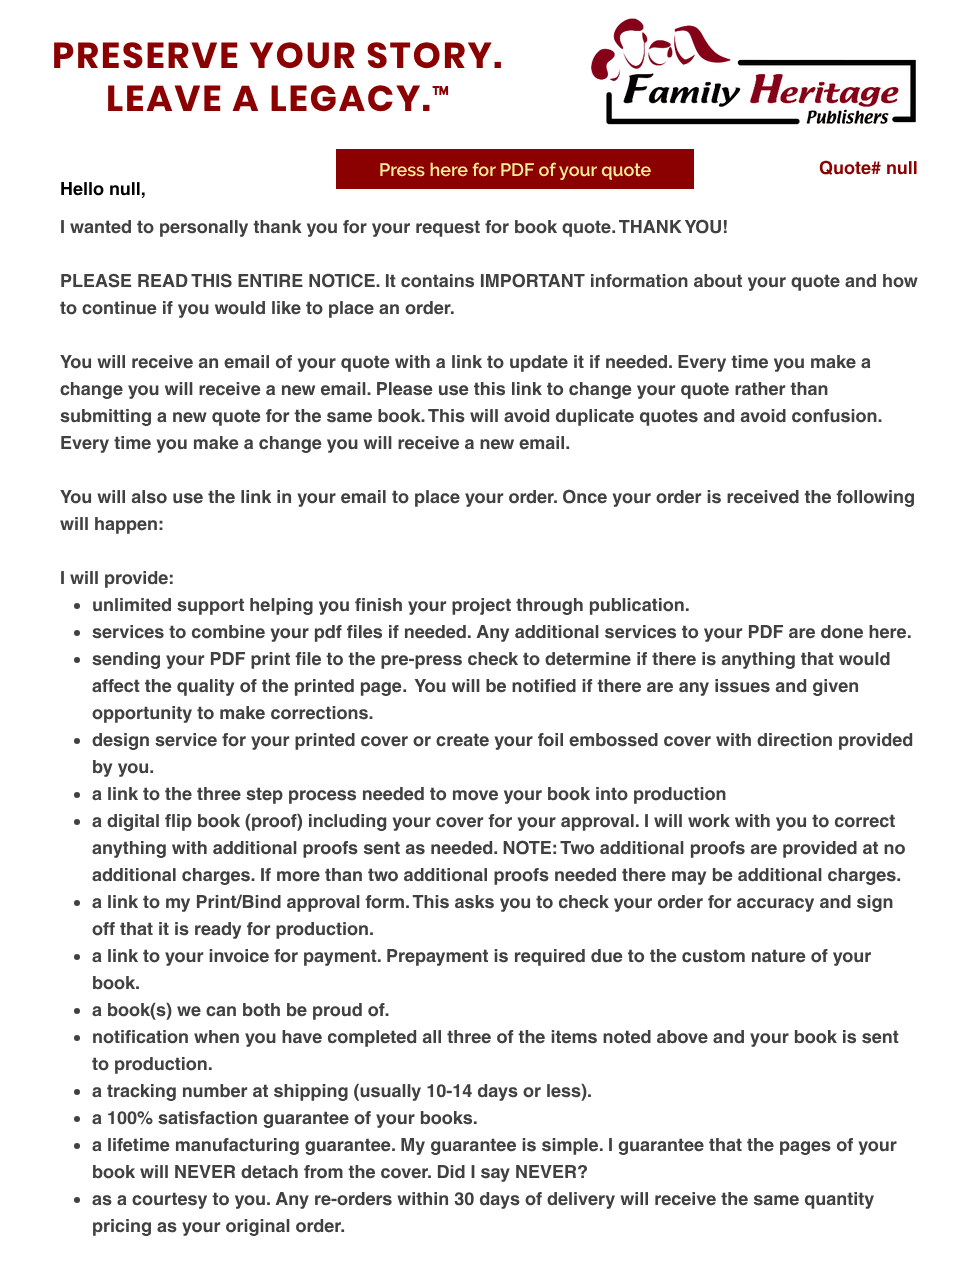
<?xml version="1.0" encoding="UTF-8"?>
<svg xmlns="http://www.w3.org/2000/svg" xmlns:xlink="http://www.w3.org/1999/xlink" width="968" height="1274">
  <rect width="100%" height="100%" fill="#ffffff" />
  <image x="591" y="18" width="325" height="107" xlink:href="image1.png" />
  <rect x="336" y="149" width="358" height="40" fill="#8b0000" />
  <circle cx="77" cy="606" r="3" fill="#414141" />
  <circle cx="77" cy="633" r="3" fill="#414141" />
  <circle cx="77" cy="660" r="3" fill="#414141" />
  <circle cx="77" cy="741" r="3" fill="#414141" />
  <circle cx="77" cy="795" r="3" fill="#414141" />
  <circle cx="77" cy="822" r="3" fill="#414141" />
  <circle cx="77" cy="903" r="3" fill="#414141" />
  <circle cx="77" cy="957" r="3" fill="#414141" />
  <circle cx="77" cy="1011" r="3" fill="#414141" />
  <circle cx="77" cy="1038" r="3" fill="#414141" />
  <circle cx="77" cy="1092" r="3" fill="#414141" />
  <circle cx="77" cy="1119" r="3" fill="#414141" />
  <circle cx="77" cy="1146" r="3" fill="#414141" />
  <circle cx="77" cy="1200" r="3" fill="#414141" />
  <text x="52" y="68" style="font-family: Poppins; font-size: 36px; font-weight: bold; letter-spacing: 1.8px; fill: #8b0000">PRESERVE YOUR STORY.</text>
  <text x="106" y="111" style="font-family: Poppins; font-size: 36px; font-weight: bold; letter-spacing: 1.8px; fill: #8b0000">LEAVE A LEGACY.</text>
  <text x="432" y="111" style="font-family: 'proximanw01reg'; font-size: 36px; font-weight: bold; letter-spacing: 1.8px; fill: #8b0000">™</text>
  <text x="379" y="176" style="font-family: Raleway; font-size: 18px; font-weight: 600; fill: #ffef98">Press here for PDF of your quote</text>
  <text x="819" y="174" style="font-family: helvetica; font-size: 18px; font-weight: bold; fill: #8b0000">Quote# null</text>
  <text x="60" y="195" style="font-family: helvetica; font-size: 18px; font-weight: bold; fill: #000000">Hello null,</text>
  <text x="60" y="233" style="font-family: helvetica; font-size: 18px; font-weight: bold; fill: #414141">I wanted to personally thank you for your request for book quote. THANK YOU!</text>
  <text x="60" y="287" style="font-family: helvetica; font-size: 18px; font-weight: bold; fill: #414141">PLEASE READ THIS ENTIRE NOTICE. It contains IMPORTANT information about your quote and how</text>
  <text x="60" y="314" style="font-family: helvetica; font-size: 18px; font-weight: bold; fill: #414141">to continue if you would like to place an order.</text>
  <text x="60" y="368" style="font-family: helvetica; font-size: 18px; font-weight: bold; fill: #414141">You will receive an email of your quote with a link to update it if needed. Every time you make a</text>
  <text x="60" y="395" style="font-family: helvetica; font-size: 18px; font-weight: bold; fill: #414141">change you will receive a new email. Please use this link to change your quote rather than</text>
  <text x="60" y="422" style="font-family: helvetica; font-size: 18px; font-weight: bold; fill: #414141">submitting a new quote for the same book. This will avoid duplicate quotes and avoid confusion.</text>
  <text x="60" y="449" style="font-family: helvetica; font-size: 18px; font-weight: bold; fill: #414141">Every time you make a change you will receive a new email.</text>
  <text x="60" y="503" style="font-family: helvetica; font-size: 18px; font-weight: bold; fill: #414141">You will also use the link in your email to place your order. Once your order is received the following</text>
  <text x="60" y="530" style="font-family: helvetica; font-size: 18px; font-weight: bold; fill: #414141">will happen:</text>
  <text x="60" y="584" style="font-family: helvetica; font-size: 18px; font-weight: bold; fill: #414141">I will provide:</text>
  <text x="92" y="611" style="font-family: helvetica; font-size: 18px; font-weight: bold; fill: #414141">unlimited support helping you finish your project through publication.</text>
  <text x="92" y="638" style="font-family: helvetica; font-size: 18px; font-weight: bold; fill: #414141">services to combine your pdf files if needed. Any additional services to your PDF are done here.</text>
  <text x="92" y="665" style="font-family: helvetica; font-size: 18px; font-weight: bold; fill: #414141">sending your PDF print file to the pre-press check to determine if there is anything that would</text>
  <text x="92" y="692" style="font-family: helvetica; font-size: 18px; font-weight: bold; fill: #414141" xml:space="preserve">affect the quality of the printed page.  You will be notified if there are any issues and given</text>
  <text x="92" y="719" style="font-family: helvetica; font-size: 18px; font-weight: bold; fill: #414141">opportunity to make corrections.</text>
  <text x="92" y="746" style="font-family: helvetica; font-size: 18px; font-weight: bold; fill: #414141">design service for your printed cover or create your foil embossed cover with direction provided</text>
  <text x="92" y="773" style="font-family: helvetica; font-size: 18px; font-weight: bold; fill: #414141">by you.</text>
  <text x="92" y="800" style="font-family: helvetica; font-size: 18px; font-weight: bold; fill: #414141">a link to the three step process needed to move your book into production</text>
  <text x="92" y="827" style="font-family: helvetica; font-size: 18px; font-weight: bold; fill: #414141">a digital flip book (proof) including your cover for your approval. I will work with you to correct</text>
  <text x="92" y="854" style="font-family: helvetica; font-size: 18px; font-weight: bold; fill: #414141">anything with additional proofs sent as needed. NOTE: Two additional proofs are provided at no</text>
  <text x="92" y="881" style="font-family: helvetica; font-size: 18px; font-weight: bold; fill: #414141">additional charges. If more than two additional proofs needed there may be additional charges.</text>
  <text x="92" y="908" style="font-family: helvetica; font-size: 18px; font-weight: bold; fill: #414141">a link to my Print/Bind approval form. This asks you to check your order for accuracy and sign</text>
  <text x="92" y="935" style="font-family: helvetica; font-size: 18px; font-weight: bold; fill: #414141">off that it is ready for production.</text>
  <text x="92" y="962" style="font-family: helvetica; font-size: 18px; font-weight: bold; fill: #414141">a link to your invoice for payment. Prepayment is required due to the custom nature of your</text>
  <text x="92" y="989" style="font-family: helvetica; font-size: 18px; font-weight: bold; fill: #414141">book.</text>
  <text x="92" y="1016" style="font-family: helvetica; font-size: 18px; font-weight: bold; fill: #414141">a book(s) we can both be proud of.</text>
  <text x="92" y="1043" style="font-family: helvetica; font-size: 18px; font-weight: bold; fill: #414141">notification when you have completed all three of the items noted above and your book is sent</text>
  <text x="92" y="1070" style="font-family: helvetica; font-size: 18px; font-weight: bold; fill: #414141">to production.</text>
  <text x="92" y="1097" style="font-family: helvetica; font-size: 18px; font-weight: bold; fill: #414141">a tracking number at shipping (usually 10-14 days or less).</text>
  <text x="92" y="1124" style="font-family: helvetica; font-size: 18px; font-weight: bold; fill: #414141">a 100% satisfaction guarantee of your books.</text>
  <text x="92" y="1151" style="font-family: helvetica; font-size: 18px; font-weight: bold; fill: #414141">a lifetime manufacturing guarantee. My guarantee is simple. I guarantee that the pages of your</text>
  <text x="92" y="1178" style="font-family: helvetica; font-size: 18px; font-weight: bold; fill: #414141">book will NEVER detach from the cover. Did I say NEVER?</text>
  <text x="92" y="1205" style="font-family: helvetica; font-size: 18px; font-weight: bold; fill: #414141">as a courtesy to you. Any re-orders within 30 days of delivery will receive the same quantity</text>
  <text x="92" y="1232" style="font-family: helvetica; font-size: 18px; font-weight: bold; fill: #414141">pricing as your original order.</text>
</svg>
